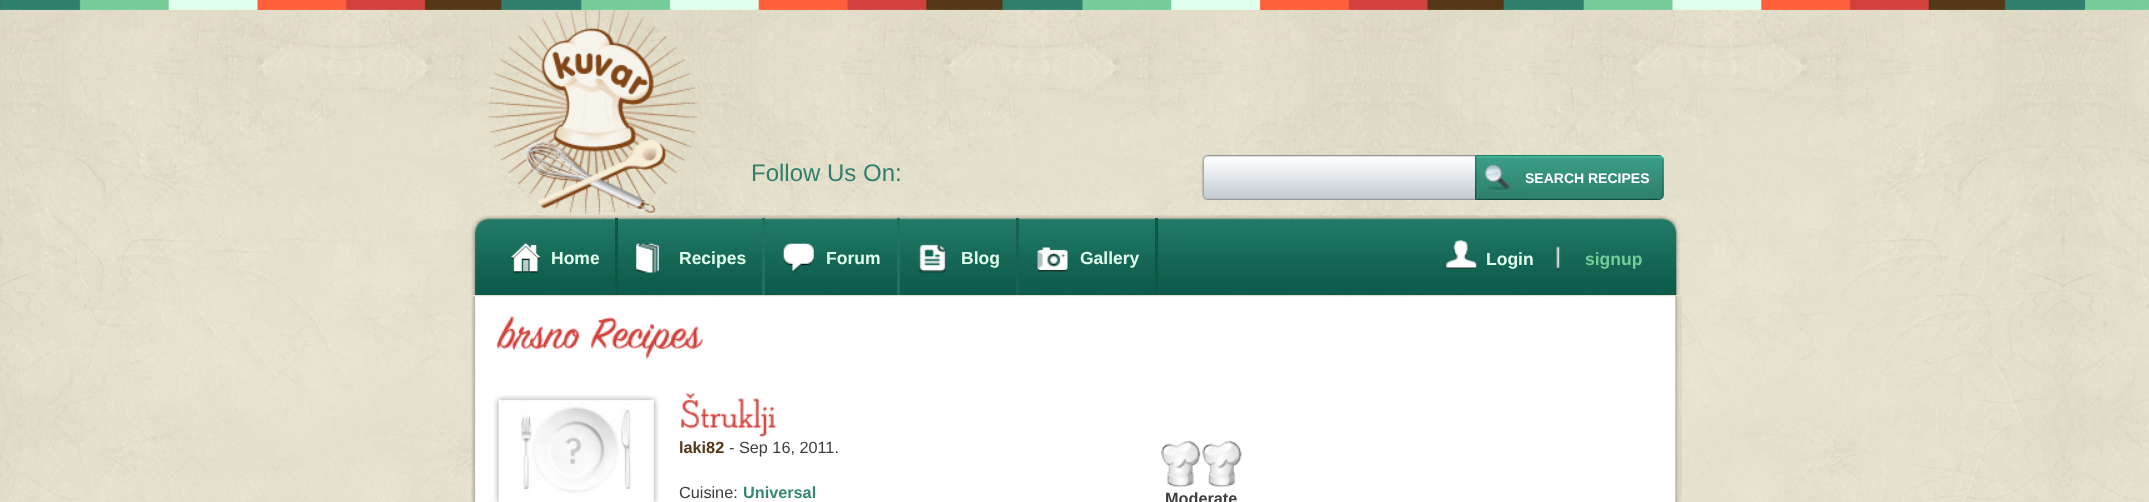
<?xml version="1.0" encoding="UTF-8"?>
<svg xmlns="http://www.w3.org/2000/svg" xmlns:xlink="http://www.w3.org/1999/xlink" width="2149" height="502">
  <rect width="100%" height="100%" fill="#ffffff" />
  <image x="0" y="10" width="2149" height="492" xlink:href="image1.png" />
  <image x="0" y="0" width="2149" height="10" xlink:href="image2.png" />
  <image x="487" y="10" width="211" height="205" xlink:href="image3.png" />
  <image x="1202" y="155" width="273" height="45" xlink:href="image4.png" />
  <image x="1475" y="155" width="50" height="45" xlink:href="image5.png" />
  <image x="1525" y="155" width="125" height="45" xlink:href="image6.png" />
  <image x="1650" y="155" width="14" height="45" xlink:href="image7.png" />
  <image x="471" y="215" width="1209" height="80" xlink:href="image8.png" />
  <rect x="615" y="218" width="3" height="77" fill="#105647" />
  <image x="511" y="243" width="29" height="30" xlink:href="image9.png" />
  <rect x="762" y="218" width="3" height="77" fill="#20715f" />
  <image x="636" y="243" width="23" height="30" xlink:href="image10.png" />
  <rect x="897" y="218" width="3" height="77" fill="#20715f" />
  <image x="783" y="243" width="31" height="30" xlink:href="image11.png" />
  <rect x="1016" y="218" width="3" height="77" fill="#176252" />
  <image x="918" y="244" width="29" height="29" xlink:href="image12.png" />
  <rect x="1155" y="218" width="3" height="77" fill="#105647" />
  <image x="1037" y="247" width="31" height="25" xlink:href="image13.png" />
  <image x="1446" y="240" width="31" height="29" xlink:href="image14.png" />
  <image x="1556" y="246" width="5" height="25" xlink:href="image15.png" />
  <image x="471" y="296" width="1211" height="206" xlink:href="image16.png" />
  <image x="496" y="316" width="85" height="35" xlink:href="image17.png" />
  <image x="591" y="317" width="112" height="42" xlink:href="image18.png" />
  <image x="493" y="395" width="166" height="107" xlink:href="image19.png" />
  <image x="681" y="392" width="96" height="45" xlink:href="image20.png" />
  <image x="1161" y="441" width="81" height="47" xlink:href="image21.png" />
  <text x="751" y="181" style="font-family: Liberation Sans; font-size: 24px; fill: #2e7f6c">Follow Us On:</text>
  <text x="1525" y="183" style="font-family: Liberation Sans; font-size: 14px; font-weight: bold; fill: #ffffff">SEARCH RECIPES</text>
  <text x="551" y="264" style="font-family: Liberation Sans; font-size: 17.5px; font-weight: bold; fill: #e0ffed">Home</text>
  <text x="679" y="264" style="font-family: Liberation Sans; font-size: 17.5px; font-weight: bold; fill: #e0ffed">Recipes</text>
  <text x="826" y="264" style="font-family: Liberation Sans; font-size: 17.5px; font-weight: bold; fill: #e0ffed">Forum</text>
  <text x="961" y="264" style="font-family: Liberation Sans; font-size: 17.5px; font-weight: bold; fill: #e0ffed">Blog</text>
  <text x="1080" y="264" style="font-family: Liberation Sans; font-size: 17.5px; font-weight: bold; fill: #e0ffed">Gallery</text>
  <text x="1486" y="265" style="font-family: Liberation Sans; font-size: 17.5px; font-weight: bold; fill: #e0ffed">Login</text>
  <text x="1585" y="265" style="font-family: Liberation Sans; font-size: 17.5px; font-weight: bold; fill: #76cc99">signup</text>
  <text x="679" y="453" style="font-family: Liberation Sans; font-size: 16.25px; font-weight: bold; fill: #543717">laki82</text>
  <text x="729" y="453" style="font-family: Liberation Sans; font-size: 16.25px; fill: #3e3e3e">- Sep 16, 2011.</text>
  <text x="679" y="498" style="font-family: Liberation Sans; font-size: 16.25px; fill: #3e3e3e">Cuisine:</text>
  <text x="743" y="498" style="font-family: Liberation Sans; font-size: 16.25px; font-weight: bold; fill: #368871">Universal</text>
  <text x="1165" y="504" style="font-family: Liberation Sans; font-size: 16.25px; font-weight: bold; fill: #3e3e3e">Moderate</text>
</svg>
